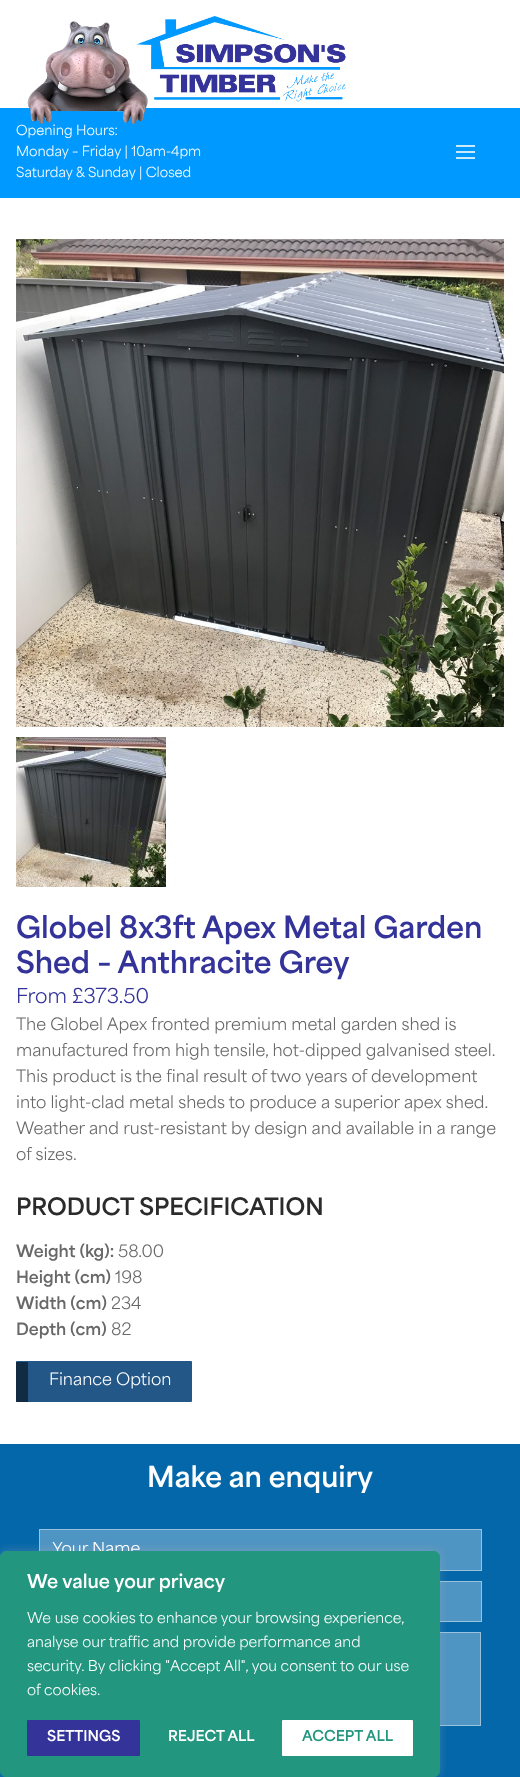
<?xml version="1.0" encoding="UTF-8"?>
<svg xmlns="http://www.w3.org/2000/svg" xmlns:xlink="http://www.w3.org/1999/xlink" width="520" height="1777">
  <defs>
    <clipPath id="clip1"><rect x="52" y="1542" width="417" height="16" /></clipPath>
  </defs>
  <rect width="100%" height="100%" fill="#ffffff" />
  <rect y="108" width="520" height="90" fill="#0099ff" />
  <image x="27" y="16" width="319" height="108" xlink:href="image1.png" />
  <rect x="456" y="151" width="19" height="2" fill="#c9eaff" />
  <rect x="456" y="145" width="19" height="2" fill="#c9eaff" />
  <rect x="456" y="157" width="19" height="2" fill="#c9eaff" />
  <image x="16" y="239" width="488" height="488" xlink:href="image2.png" />
  <image x="16" y="737" width="150" height="150" xlink:href="image3.png" />
  <rect x="16" y="1361" width="176" height="41" rx="1" fill="#235787" />
  <rect x="16" y="1362" width="12" height="40" fill="#000000" fill-opacity="0.5" />
  <rect y="1444" width="520" height="333" fill="#0467a9" />
  <rect x="39.5" y="1529.5" width="442" height="41" fill="#4f95c3" stroke="#9bc2dd" />
  <rect x="440" y="1582" width="41" height="39" fill="#4f95c3" />
  <rect x="39.5" y="1581.5" width="442" height="40" fill="none" stroke="#9bc2dd" />
  <rect x="440" y="1633" width="40" height="92" fill="#4f95c3" />
  <rect x="40.5" y="1632.5" width="440" height="93" fill="none" stroke="#9bc2dd" />
  <rect y="1550" width="440" height="226" rx="6" fill="#acabab" fill-opacity="0.3" filter="blur(5px)" />
  <text x="16" y="135" style="font-family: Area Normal; font-size: 13px; fill: #ffffff">Opening Hours:</text>
  <text x="16" y="156" style="font-family: Area Normal; font-size: 13px; fill: #ffffff">Monday – Friday | 10am-4pm</text>
  <text x="16" y="177" style="font-family: Area Normal; font-size: 13px; fill: #ffffff">Saturday &amp; Sunday | Closed</text>
  <text x="16" y="938" style="font-family: Area Normal; font-size: 28.75px; font-weight: bold; fill: #333399">Globel 8x3ft Apex Metal Garden</text>
  <text x="16" y="973" style="font-family: Area Normal; font-size: 28.75px; font-weight: bold; fill: #333399">Shed – Anthracite Grey</text>
  <text x="16" y="1003" style="font-family: Area Normal; font-size: 19.25px; fill: #333399">From £373.50</text>
  <text x="16" y="1030" style="font-family: Area Normal; font-size: 16px; fill: #686868">The Globel Apex fronted premium metal garden shed is</text>
  <text x="16" y="1056" style="font-family: Area Normal; font-size: 16px; fill: #686868">manufactured from high tensile, hot-dipped galvanised steel.</text>
  <text x="16" y="1082" style="font-family: Area Normal; font-size: 16px; fill: #686868">This product is the final result of two years of development</text>
  <text x="16" y="1108" style="font-family: Area Normal; font-size: 16px; fill: #686868">into light-clad metal sheds to produce a superior apex shed.</text>
  <text x="16" y="1134" style="font-family: Area Normal; font-size: 16px; fill: #686868">Weather and rust-resistant by design and available in a range</text>
  <text x="16" y="1160" style="font-family: Area Normal; font-size: 16px; fill: #686868">of sizes.</text>
  <text x="16" y="1215" style="font-family: Area Normal; font-size: 22.6px; font-weight: bold; fill: #2b2b2b">PRODUCT SPECIFICATION</text>
  <text x="16" y="1257" style="font-family: Area Normal; font-size: 16px; font-weight: bold; fill: #686868">Weight (kg):</text>
  <text x="118" y="1257" style="font-family: Area Normal; font-size: 16px; fill: #686868">58.00</text>
  <text x="16" y="1283" style="font-family: Area Normal; font-size: 16px; font-weight: bold; fill: #686868">Height (cm)</text>
  <text x="115" y="1283" style="font-family: Area Normal; font-size: 16px; fill: #686868">198</text>
  <text x="16" y="1309" style="font-family: Area Normal; font-size: 16px; font-weight: bold; fill: #686868">Width (cm)</text>
  <text x="111" y="1309" style="font-family: Area Normal; font-size: 16px; fill: #686868">234</text>
  <text x="16" y="1335" style="font-family: Area Normal; font-size: 16px; font-weight: bold; fill: #686868">Depth (cm)</text>
  <text x="111" y="1335" style="font-family: Area Normal; font-size: 16px; fill: #686868">82</text>
  <text x="49" y="1385" style="font-family: Area Normal; font-size: 16px; fill: #ffffff">Finance Option</text>
  <text x="147" y="1487" style="font-family: Area Normal; font-size: 27.25px; font-weight: bold; fill: #ffffff">Make an enquiry</text>
  <g clip-path="url(#clip1)">
    <text x="52" y="1554" style="font-family: Area Normal; font-size: 16px; fill: #ffffff">Your Name</text>
  </g>
  <rect x="0.5" y="1551.5" width="439" height="225" rx="5.5" fill="#23967f" stroke="#23967f" />
  <text x="27" y="1588" style="font-family: Area Normal; font-size: 18px; font-weight: bold; fill: #ffffff">We value your privacy</text>
  <text x="27" y="1623" style="font-family: Area Normal; font-size: 14px; fill: #ffffff">We use cookies to enhance your browsing experience,</text>
  <text x="27" y="1647" style="font-family: Area Normal; font-size: 14px; fill: #ffffff">analyse our traffic and provide performance and</text>
  <text x="27" y="1671" style="font-family: Area Normal; font-size: 14px; fill: #ffffff">security. By clicking "Accept All", you consent to our use</text>
  <text x="27" y="1695" style="font-family: Area Normal; font-size: 14px; fill: #ffffff">of cookies.</text>
  <rect x="27" y="1720" width="113" height="36" rx="1" fill="#333399" />
  <text x="47" y="1741" style="font-family: Area Normal; font-size: 14px; font-weight: bold; fill: #ffffff">SETTINGS</text>
  <text x="168" y="1741" style="font-family: Area Normal; font-size: 14px; font-weight: bold; fill: #ffffff">REJECT ALL</text>
  <rect x="282" y="1720" width="131" height="36" rx="1" fill="#ffffff" />
  <text x="302" y="1741" style="font-family: Area Normal; font-size: 14px; font-weight: bold; fill: #23967f">ACCEPT ALL</text>
</svg>
